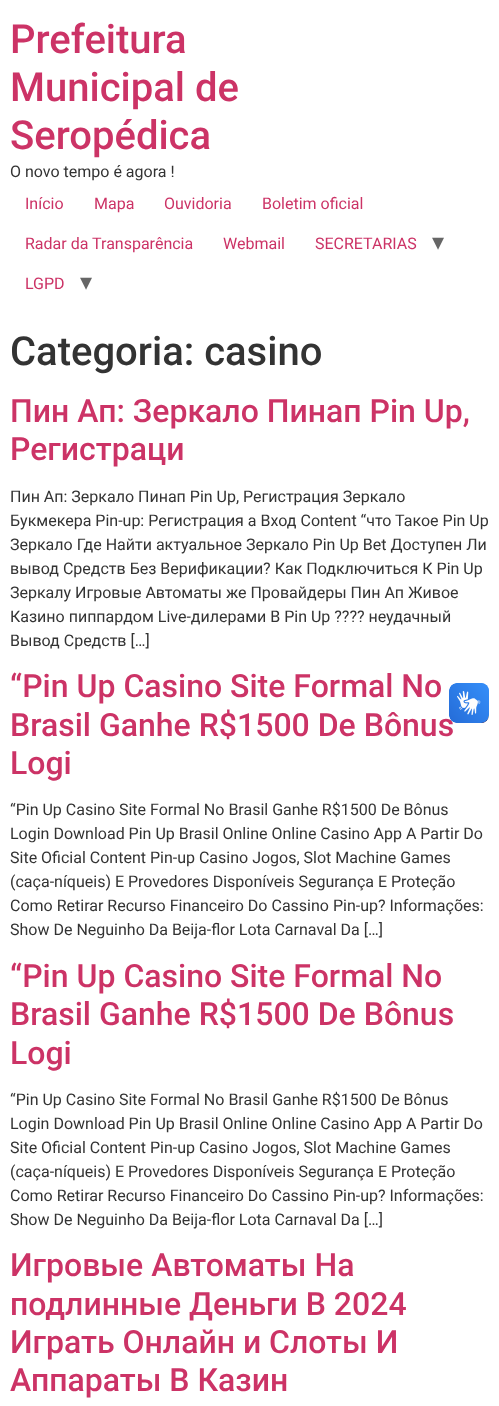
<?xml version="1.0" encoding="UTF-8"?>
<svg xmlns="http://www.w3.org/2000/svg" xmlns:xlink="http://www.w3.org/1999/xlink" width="499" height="1406">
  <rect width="100%" height="100%" fill="#ffffff" />
  <text x="10" y="53" style="font-family: Roboto; font-size: 40px; font-weight: 500; fill: #cc3366">Prefeitura</text>
  <text x="10" y="101" style="font-family: Roboto; font-size: 40px; font-weight: 500; fill: #cc3366">Municipal de</text>
  <text x="10" y="149" style="font-family: Roboto; font-size: 40px; font-weight: 500; fill: #cc3366">Seropédica</text>
  <text x="10" y="177" style="font-family: Roboto; font-size: 16px; fill: #333333">O novo tempo é agora !</text>
  <text x="25" y="209" style="font-family: Roboto; font-size: 16px; fill: #cc3366">Início</text>
  <text x="94" y="209" style="font-family: Roboto; font-size: 16px; fill: #cc3366">Mapa</text>
  <text x="164" y="209" style="font-family: Roboto; font-size: 16px; fill: #cc3366">Ouvidoria</text>
  <text x="262" y="209" style="font-family: Roboto; font-size: 16px; fill: #cc3366">Boletim oficial</text>
  <text x="25" y="249" style="font-family: Roboto; font-size: 16px; fill: #cc3366">Radar da Transparência</text>
  <text x="223" y="249" style="font-family: Roboto; font-size: 16px; fill: #cc3366">Webmail</text>
  <text x="315" y="249" style="font-family: Roboto; font-size: 16px; fill: #cc3366">SECRETARIAS</text>
  <text x="432" y="250" style="font-family: DejaVu Sans; font-size: 24px; fill: #666666">▾</text>
  <text x="25" y="289" style="font-family: Roboto; font-size: 16px; fill: #cc3366">LGPD</text>
  <text x="80" y="290" style="font-family: DejaVu Sans; font-size: 24px; fill: #666666">▾</text>
  <text x="10" y="365" style="font-family: Roboto; font-size: 40px; font-weight: 500; fill: #333333">Categoria: casino</text>
  <text x="10" y="422" style="font-family: Roboto; font-size: 32px; font-weight: 500; fill: #cc3366">Пин Ап: Зеркало Пинап Pin Up,</text>
  <text x="10" y="460" style="font-family: Roboto; font-size: 32px; font-weight: 500; fill: #cc3366">Регистраци</text>
  <text x="10" y="502" style="font-family: Roboto; font-size: 16px; fill: #333333">Пин Ап: Зеркало Пинап Pin Up, Регистрация Зеркало</text>
  <text x="10" y="526" style="font-family: Roboto; font-size: 16px; fill: #333333">Букмекера Pin-up: Регистрация а Вход Content “что Такое Pin Up</text>
  <text x="10" y="550" style="font-family: Roboto; font-size: 16px; fill: #333333">Зеркало Где Найти актуальное Зеркало Pin Up Bet Доступен Ли</text>
  <text x="10" y="574" style="font-family: Roboto; font-size: 16px; fill: #333333">вывод Средств Без Верификации? Как Подключиться К Pin Up</text>
  <text x="10" y="598" style="font-family: Roboto; font-size: 16px; fill: #333333">Зеркалу Игровые Автоматы же Провайдеры Пин Ап Живое</text>
  <text x="10" y="622" style="font-family: Roboto; font-size: 16px; fill: #333333">Казино пиппардом Live-дилерами В Pin Up ???? неудачный</text>
  <text x="10" y="646" style="font-family: Roboto; font-size: 16px; fill: #333333">Вывод Средств […]</text>
  <text x="10" y="697" style="font-family: Roboto; font-size: 32px; font-weight: 500; fill: #cc3366">“Pin Up Casino Site Formal No</text>
  <text x="10" y="736" style="font-family: Roboto; font-size: 32px; font-weight: 500; fill: #cc3366">Brasil Ganhe R$1500 De Bônus</text>
  <text x="10" y="774" style="font-family: Roboto; font-size: 32px; font-weight: 500; fill: #cc3366">Logi</text>
  <text x="10" y="815" style="font-family: Roboto; font-size: 16px; fill: #333333">“Pin Up Casino Site Formal No Brasil Ganhe R$1500 De Bônus</text>
  <text x="10" y="839" style="font-family: Roboto; font-size: 16px; fill: #333333">Login Download Pin Up Brasil️ Online Online Casino App A Partir Do</text>
  <text x="10" y="863" style="font-family: Roboto; font-size: 16px; fill: #333333">Site Oficial Content Pin-up Casino Jogos, Slot Machine Games</text>
  <text x="10" y="887" style="font-family: Roboto; font-size: 16px; fill: #333333">(caça-níqueis) E Provedores Disponíveis Segurança E Proteção</text>
  <text x="10" y="911" style="font-family: Roboto; font-size: 16px; fill: #333333">Como Retirar Recurso Financeiro Do Cassino Pin-up? Informações:</text>
  <text x="10" y="935" style="font-family: Roboto; font-size: 16px; fill: #333333">Show De Neguinho Da Beija-flor Lota Carnaval Da […]</text>
  <text x="10" y="987" style="font-family: Roboto; font-size: 32px; font-weight: 500; fill: #cc3366">“Pin Up Casino Site Formal No</text>
  <text x="10" y="1025" style="font-family: Roboto; font-size: 32px; font-weight: 500; fill: #cc3366">Brasil Ganhe R$1500 De Bônus</text>
  <text x="10" y="1064" style="font-family: Roboto; font-size: 32px; font-weight: 500; fill: #cc3366">Logi</text>
  <text x="10" y="1105" style="font-family: Roboto; font-size: 16px; fill: #333333">“Pin Up Casino Site Formal No Brasil Ganhe R$1500 De Bônus</text>
  <text x="10" y="1129" style="font-family: Roboto; font-size: 16px; fill: #333333">Login Download Pin Up Brasil️ Online Online Casino App A Partir Do</text>
  <text x="10" y="1153" style="font-family: Roboto; font-size: 16px; fill: #333333">Site Oficial Content Pin-up Casino Jogos, Slot Machine Games</text>
  <text x="10" y="1177" style="font-family: Roboto; font-size: 16px; fill: #333333">(caça-níqueis) E Provedores Disponíveis Segurança E Proteção</text>
  <text x="10" y="1201" style="font-family: Roboto; font-size: 16px; fill: #333333">Como Retirar Recurso Financeiro Do Cassino Pin-up? Informações:</text>
  <text x="10" y="1225" style="font-family: Roboto; font-size: 16px; fill: #333333">Show De Neguinho Da Beija-flor Lota Carnaval Da […]</text>
  <text x="10" y="1276" style="font-family: Roboto; font-size: 32px; font-weight: 500; fill: #cc3366">Игровые Автоматы На</text>
  <text x="10" y="1315" style="font-family: Roboto; font-size: 32px; font-weight: 500; fill: #cc3366">подлинные Деньги В 2024</text>
  <text x="10" y="1353" style="font-family: Roboto; font-size: 32px; font-weight: 500; fill: #cc3366">Играть Онлайн и Слоты И</text>
  <text x="10" y="1391" style="font-family: Roboto; font-size: 32px; font-weight: 500; fill: #cc3366">Аппараты В Казин</text>
  <image x="449" y="683" width="40" height="40" xlink:href="image1.png" />
  <image x="449" y="683" width="40" height="40" xlink:href="image2.png" />
</svg>
